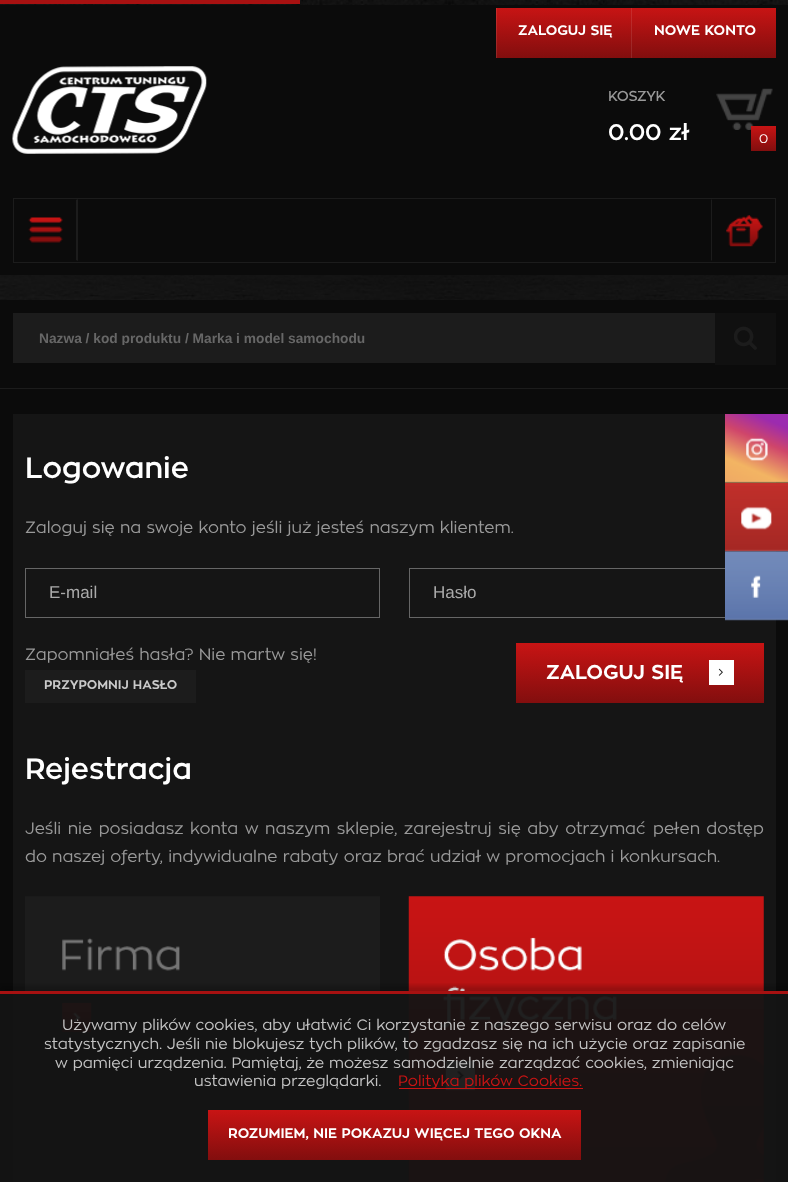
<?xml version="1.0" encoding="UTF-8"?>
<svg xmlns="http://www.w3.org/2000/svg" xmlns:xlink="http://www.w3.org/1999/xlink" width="788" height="1182">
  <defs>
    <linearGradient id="g1" gradientUnits="userSpaceOnUse" x1="565" y1="7.5" x2="565" y2="58"><stop offset="0" stop-color="#c81414" /><stop offset="1" stop-color="#820e0e" /></linearGradient>
    <linearGradient id="g2" gradientUnits="userSpaceOnUse" x1="704" y1="7.5" x2="704" y2="58"><stop offset="0" stop-color="#c81414" /><stop offset="1" stop-color="#820e0e" /></linearGradient>
    <linearGradient id="g3" gradientUnits="userSpaceOnUse" x1="764" y1="126" x2="764" y2="151"><stop offset="0" stop-color="#c81414" /><stop offset="1" stop-color="#820e0e" /></linearGradient>
    <linearGradient id="g4" gradientUnits="userSpaceOnUse" x1="640" y1="643" x2="640" y2="703"><stop offset="0" stop-color="#c81414" /><stop offset="1" stop-color="#820e0e" /></linearGradient>
    <clipPath id="clip1"><rect x="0" y="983" width="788" height="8" /></clipPath>
    <linearGradient id="g5" gradientUnits="userSpaceOnUse" x1="394" y1="1110" x2="394" y2="1160"><stop offset="0" stop-color="#c81414" /><stop offset="1" stop-color="#820e0e" /></linearGradient>
    <clipPath id="clip2"><rect x="39" y="330" width="711" height="15" /></clipPath>
  </defs>
  <rect width="100%" height="100%" fill="#ffffff" />
  <image x="0" y="0" width="788" height="300" xlink:href="image1.png" />
  <rect y="5" width="788" height="270" fill="#0b0b0b" />
  <rect width="300" height="4" fill="#a71111" />
  <image x="12" y="66" width="195" height="88" xlink:href="image2.png" />
  <rect x="496" y="8" width="135" height="50" fill="url(#g1)" />
  <rect x="496" y="8" width="1" height="50" fill="#ffffff" fill-opacity="0.1" />
  <rect x="631" y="8" width="145" height="50" fill="url(#g2)" />
  <rect x="631" y="8" width="1" height="50" fill="#ffffff" fill-opacity="0.1" />
  <image x="716" y="88" width="57" height="42" xlink:href="image3.png" />
  <rect x="751" y="126" width="25" height="25" fill="url(#g3)" />
  <rect x="13.5" y="198.5" width="762" height="64" fill="none" stroke="#1c1c1c" />
  <image x="28" y="217" width="35" height="26" xlink:href="image4.png" />
  <path d="M 78 199 v 62 l -2 -1 v -60 z" fill="#1c1c1c" />
  <image x="726" y="215" width="37" height="32" xlink:href="image5.png" />
  <path d="M 711 261 v -62 l 1 1 v 60 z" fill="#1c1c1c" />
  <rect y="300" width="788" height="882" fill="#0b0b0b" />
  <rect y="388" width="788" height="1" fill="#1c1c1c" />
  <rect x="13" y="313" width="702" height="50" fill="#1c1c1c" />
  <rect x="715" y="313" width="61" height="52" fill="#101010" />
  <image x="734" y="326" width="23" height="24" xlink:href="image6.png" />
  <rect x="13" y="414" width="763" height="768" fill="#151515" />
  <rect x="25.5" y="568.5" width="354" height="49" fill="none" stroke="#666666" />
  <rect x="409.5" y="568.5" width="354" height="49" fill="none" stroke="#666666" />
  <rect x="25" y="670" width="171" height="33" fill="#1c1c1c" />
  <rect x="516" y="643" width="248" height="60" fill="url(#g4)" />
  <rect x="709" y="660" width="25" height="25" fill="#ffffff" />
  <image x="718" y="668" width="5" height="8" xlink:href="image7.png" />
  <image x="25" y="896" width="355" height="286" xlink:href="image8.png" />
  <image x="408" y="896" width="356" height="286" xlink:href="image9.png" />
  <image x="725" y="414" width="63" height="69" xlink:href="image10.png" />
  <rect x="725" y="483" width="63" height="68" fill="#c4302b" />
  <image x="725" y="486" width="63" height="66" xlink:href="image11.png" />
  <image x="725" y="550" width="63" height="71" xlink:href="image12.png" />
  <g clip-path="url(#clip1)">
    <rect y="986" width="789" height="192" fill="#000000" fill-opacity="0.2" filter="blur(2.5px)" />
  </g>
  <rect y="994" width="788" height="188" fill="#141414" fill-opacity="0.95" />
  <rect y="991" width="788" height="3" fill="#a71111" />
  <rect x="399" y="1088" width="184" height="1" fill="#c81414" />
  <rect x="208" y="1110" width="373" height="50" fill="url(#g5)" />
  <text x="518" y="35" style="font-family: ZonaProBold; font-size: 13.75px; font-weight: bold; fill: #ffffff">ZALOGUJ SIĘ</text>
  <text x="654" y="35" style="font-family: ZonaProBold; font-size: 13.75px; font-weight: bold; fill: #ffffff">NOWE KONTO</text>
  <text x="608" y="101" style="font-family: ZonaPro; font-size: 13.75px; font-weight: bold; fill: #999999">KOSZYK</text>
  <text x="608" y="140" style="font-family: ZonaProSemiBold; font-size: 22.5px; font-weight: 600; fill: #ffffff">0.00 zł</text>
  <text x="759" y="143" style="font-family: ZonaPro; font-size: 12.5px; fill: #ffffff">0</text>
  <g clip-path="url(#clip2)">
    <text x="39" y="343" style="font-family: Liberation Sans; font-size: 13.75px; font-weight: bold; fill: #676767">Nazwa / kod produktu / Marka i model samochodu</text>
  </g>
  <text x="25" y="478" style="font-family: ZonaProSemiBold; font-size: 29.25px; font-weight: 600; fill: #ffffff">Logowanie</text>
  <text x="25" y="533" style="font-family: ZonaPro; font-size: 16.25px; fill: #999999">Zaloguj się na swoje konto jeśli już jesteś naszym klientem.</text>
  <text x="49" y="598" style="font-family: Liberation Sans; font-size: 17px; fill: #aaaaaa">E-mail</text>
  <text x="433" y="598" style="font-family: Liberation Sans; font-size: 17px; fill: #aaaaaa">Hasło</text>
  <text x="25" y="660" style="font-family: ZonaPro; font-size: 16.25px; fill: #999999">Zapomniałeś hasła? Nie martw się!</text>
  <text x="44" y="689" style="font-family: ZonaProBold; font-size: 12.5px; font-weight: bold; fill: #cacaca">PRZYPOMNIJ HASŁO</text>
  <text x="546" y="679" style="font-family: ZonaProBold; font-size: 20px; font-weight: bold; fill: #ffffff">ZALOGUJ SIĘ</text>
  <text x="25" y="779" style="font-family: ZonaProSemiBold; font-size: 29.25px; font-weight: 600; fill: #ffffff">Rejestracja</text>
  <text x="25" y="834" word-spacing="1.25" style="font-family: ZonaPro; font-size: 16.25px; fill: #999999">Jeśli nie posiadasz konta w naszym sklepie, zarejestruj się aby otrzymać</text>
  <text x="653" y="834" word-spacing="1" style="font-family: ZonaPro; font-size: 16.25px; fill: #999999">pełen dostęp</text>
  <text x="25" y="862" style="font-family: ZonaPro; font-size: 16.25px; fill: #999999">do naszej oferty, indywidualne rabaty oraz brać udział w promocjach i konkursach.</text>
  <text x="62" y="1030" style="font-family: ZonaPro; font-size: 15px; fill: #c2c2c2">Używamy plików cookies, aby ułatwić Ci korzystanie z naszego serwisu oraz do celów</text>
  <text x="44" y="1049" style="font-family: ZonaPro; font-size: 15px; fill: #c2c2c2">statystycznych. Jeśli nie blokujesz tych plików, to zgadzasz się na ich użycie oraz zapisanie</text>
  <text x="55" y="1068" style="font-family: ZonaPro; font-size: 15px; fill: #c2c2c2">w pamięci urządzenia. Pamiętaj, że możesz samodzielnie zarządzać cookies, zmieniając</text>
  <text x="194" y="1086" style="font-family: ZonaPro; font-size: 15px; fill: #c2c2c2">ustawienia przeglądarki.</text>
  <text x="398" y="1086" style="font-family: ZonaPro; font-size: 15px; fill: #c81414">Polityka plików Cookies.</text>
  <text x="228" y="1138" style="font-family: ZonaProBold; font-size: 13.75px; font-weight: bold; fill: #ffffff">ROZUMIEM, NIE POKAZUJ WIĘCEJ TEGO OKNA</text>
</svg>
